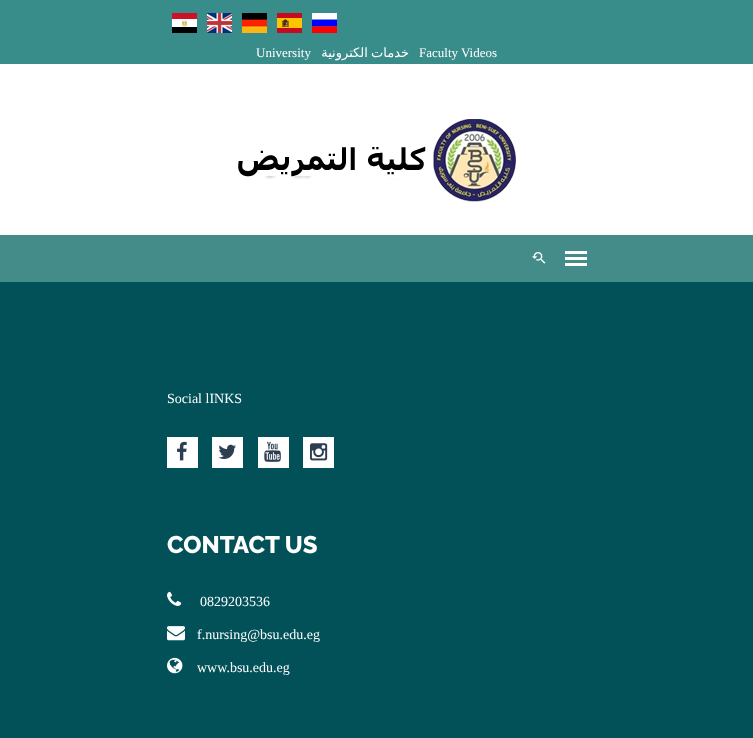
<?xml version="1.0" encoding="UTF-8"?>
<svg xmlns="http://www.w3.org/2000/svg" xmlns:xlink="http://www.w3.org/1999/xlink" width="753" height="738">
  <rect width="100%" height="100%" fill="#ffffff" />
  <rect width="753" height="64" fill="#388c8a" />
  <image x="172" y="13" width="25" height="20" xlink:href="image1.png" />
  <image x="207" y="13" width="25" height="20" xlink:href="image2.png" />
  <image x="242" y="13" width="25" height="20" xlink:href="image3.png" />
  <image x="277" y="13" width="25" height="20" xlink:href="image4.png" />
  <image x="312" y="13" width="25" height="20" xlink:href="image5.png" />
  <image x="238" y="119" width="278" height="83" xlink:href="image6.png" />
  <rect y="235" width="753" height="47" fill="#438c89" />
  <image x="532" y="252" width="14" height="12" xlink:href="image7.png" />
  <rect x="565" y="251" width="22" height="3" fill="#ffffff" />
  <rect x="565" y="257" width="22" height="3" fill="#ffffff" />
  <rect x="565" y="263" width="22" height="3" fill="#ffffff" />
  <rect y="282" width="753" height="456" fill="#025159" />
  <rect x="167" y="437" width="31" height="31" fill="#ffffff" />
  <image x="177" y="441" width="10" height="20" xlink:href="image8.png" />
  <rect x="212" y="437" width="31" height="31" fill="#ffffff" />
  <image x="218" y="444" width="18" height="15" xlink:href="image9.png" />
  <rect x="258" y="437" width="31" height="31" fill="#ffffff" />
  <image x="264" y="441" width="17" height="21" xlink:href="image10.png" />
  <rect x="303" y="437" width="31" height="31" fill="#ffffff" />
  <image x="310" y="443" width="18" height="18" xlink:href="image11.png" />
  <image x="167" y="591" width="15" height="15" xlink:href="image12.png" />
  <image x="167" y="626" width="18" height="15" xlink:href="image13.png" />
  <image x="167" y="657" width="16" height="17" xlink:href="image14.png" />
  <text x="256" y="57" style="font-family: Liberation Serif; font-size: 13px; fill: #ffffff">University</text>
  <text x="409" y="57" word-spacing="-1" style="font-family: DejaVu Sans; font-size: 13px; direction: rtl; fill: #ffffff">خدمات الكترونية</text>
  <text x="419" y="57" style="font-family: Liberation Serif; font-size: 13px; fill: #ffffff">Faculty Videos</text>
  <text x="167" y="403" style="font-family: Liberation Serif; font-size: 14px; fill: #ffffff">Social lINKS</text>
  <text x="167" y="553" style="font-family: Raleway; font-size: 24px; font-weight: 800; fill: #ffffff">CONTACT US</text>
  <text x="200" y="606" style="font-family: Liberation Serif; font-size: 14px; fill: #ffffff">0829203536</text>
  <text x="197" y="639" style="font-family: Liberation Serif; font-size: 14px; fill: #ffffff">f.nursing@bsu.edu.eg</text>
  <text x="197" y="672" style="font-family: Liberation Serif; font-size: 14px; fill: #ffffff">www.bsu.edu.eg</text>
</svg>
